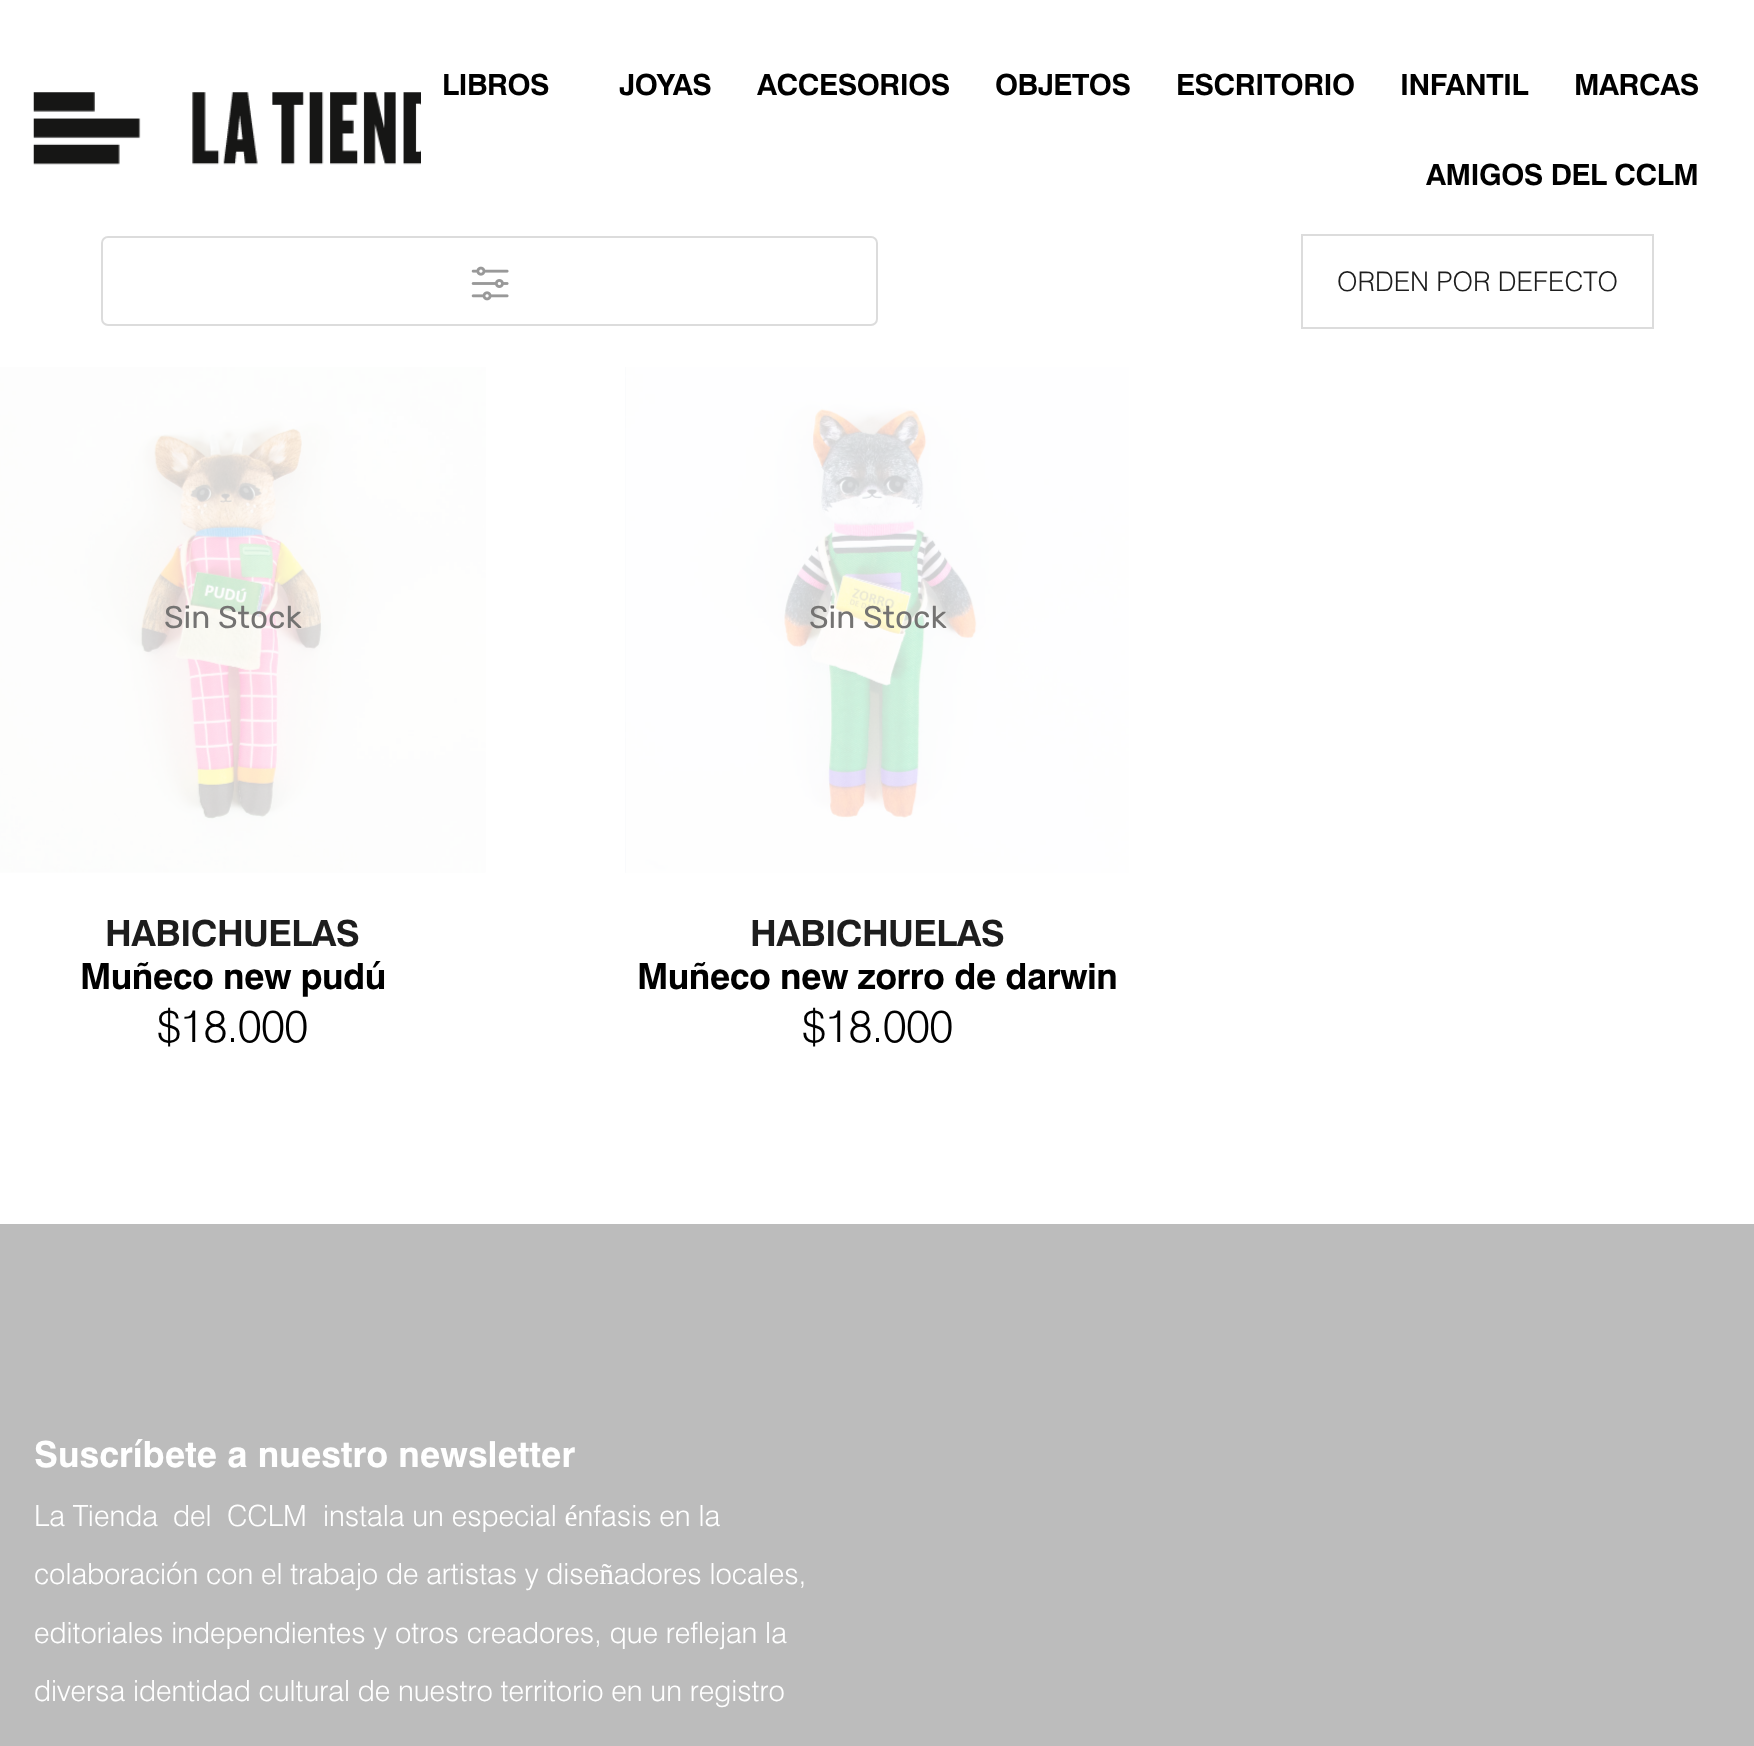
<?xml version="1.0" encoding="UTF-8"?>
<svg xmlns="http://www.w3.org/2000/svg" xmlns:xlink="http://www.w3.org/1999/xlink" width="1754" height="1746">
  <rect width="100%" height="100%" fill="#ffffff" />
  <image x="33" y="92" width="388" height="73" xlink:href="image1.png" />
  <rect x="102" y="237" width="775" height="88" rx="6" fill="none" stroke="#dcdcdc" stroke-width="2" />
  <image x="471" y="266" width="38" height="35" xlink:href="image2.png" />
  <rect x="1302" y="235" width="351" height="93" fill="none" stroke="#dcdcdc" stroke-width="2" />
  <image x="0" y="367" width="486" height="506" xlink:href="image3.png" />
  <image x="625" y="367" width="504" height="506" xlink:href="image4.png" />
  <rect y="1224" width="1754" height="522" fill="#bcbcbc" />
  <text x="442" y="95" style="font-family: 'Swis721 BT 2'; font-size: 29.25px; font-weight: bold; letter-spacing: -0.5px; fill: #000000">LIBROS</text>
  <text x="619" y="95" style="font-family: 'Swis721 BT 2'; font-size: 29.25px; font-weight: bold; letter-spacing: -0.5px; fill: #000000">JOYAS</text>
  <text x="757" y="95" style="font-family: 'Swis721 BT 2'; font-size: 29.25px; font-weight: bold; letter-spacing: -0.5px; fill: #000000">ACCESORIOS</text>
  <text x="995" y="95" style="font-family: 'Swis721 BT 2'; font-size: 29.25px; font-weight: bold; letter-spacing: -0.5px; fill: #000000">OBJETOS</text>
  <text x="1176" y="95" style="font-family: 'Swis721 BT 2'; font-size: 29.25px; font-weight: bold; letter-spacing: -0.5px; fill: #000000">ESCRITORIO</text>
  <text x="1400" y="95" style="font-family: 'Swis721 BT 2'; font-size: 29.25px; font-weight: bold; letter-spacing: -0.5px; fill: #000000">INFANTIL</text>
  <text x="1574" y="95" style="font-family: 'Swis721 BT 2'; font-size: 29.25px; font-weight: bold; letter-spacing: -0.5px; fill: #000000">MARCAS</text>
  <text x="1426" y="185" style="font-family: 'Swis721 BT 2'; font-size: 29.25px; font-weight: bold; letter-spacing: -0.5px; fill: #000000">AMIGOS DEL CCLM</text>
  <text x="1337" y="291" style="font-family: 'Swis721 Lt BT'; font-size: 27px; font-weight: 300; fill: #1d1d1d">ORDEN POR DEFECTO</text>
  <text x="164" y="628" style="font-family: Rubik; font-size: 31.5px; fill: #747372">Sin Stock</text>
  <text x="105" y="946" style="font-family: 'Swis721 BT 2'; font-size: 36px; font-weight: bold; letter-spacing: -0.55px; fill: #1d1d1d">HABICHUELAS</text>
  <text x="80" y="989" style="font-family: 'Swis721 BT 2'; font-size: 36px; font-weight: bold; letter-spacing: -0.55px; fill: #000000">Muñeco new pudú</text>
  <text x="157" y="1042" style="font-family: 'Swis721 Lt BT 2'; font-size: 45px; font-weight: 300; letter-spacing: -0.75px; fill: #000000">$18.000</text>
  <text x="809" y="628" style="font-family: Rubik; font-size: 31.5px; fill: #747372">Sin Stock</text>
  <text x="750" y="946" style="font-family: 'Swis721 BT 2'; font-size: 36px; font-weight: bold; letter-spacing: -0.55px; fill: #1d1d1d">HABICHUELAS</text>
  <text x="637" y="989" style="font-family: 'Swis721 BT 2'; font-size: 36px; font-weight: bold; letter-spacing: -0.55px; fill: #000000">Muñeco new zorro de darwin</text>
  <text x="802" y="1042" style="font-family: 'Swis721 Lt BT 2'; font-size: 45px; font-weight: 300; letter-spacing: -0.75px; fill: #000000">$18.000</text>
  <text x="34" y="1467" style="font-family: 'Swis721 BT'; font-size: 36px; font-weight: bold; fill: #ffffff">Suscríbete a nuestro newsletter</text>
  <text x="34" y="1526" style="font-family: 'Swis721 Lt BT'; font-size: 29.25px; font-weight: 300; fill: #ffffff">La Tienda</text>
  <text x="173" y="1526" style="font-family: 'Swis721 Lt BT'; font-size: 29.25px; font-weight: 300; fill: #ffffff">del</text>
  <text x="227" y="1526" style="font-family: 'Swis721 Lt BT'; font-size: 29.25px; font-weight: 300; fill: #ffffff">CCLM</text>
  <text x="323" y="1526" style="font-family: 'Swis721 Lt BT'; font-size: 29.25px; font-weight: 300; fill: #ffffff">instala un especial énfasis en la</text>
  <text x="34" y="1584" style="font-family: 'Swis721 Lt BT'; font-size: 29.25px; font-weight: 300; fill: #ffffff">colaboración con el trabajo de artistas y diseñadores locales,</text>
  <text x="34" y="1643" style="font-family: 'Swis721 Lt BT'; font-size: 29.25px; font-weight: 300; fill: #ffffff">editoriales independientes y otros creadores, que reflejan la</text>
  <text x="34" y="1701" style="font-family: 'Swis721 Lt BT'; font-size: 29.25px; font-weight: 300; fill: #ffffff">diversa identidad cultural de nuestro territorio en un registro</text>
</svg>
